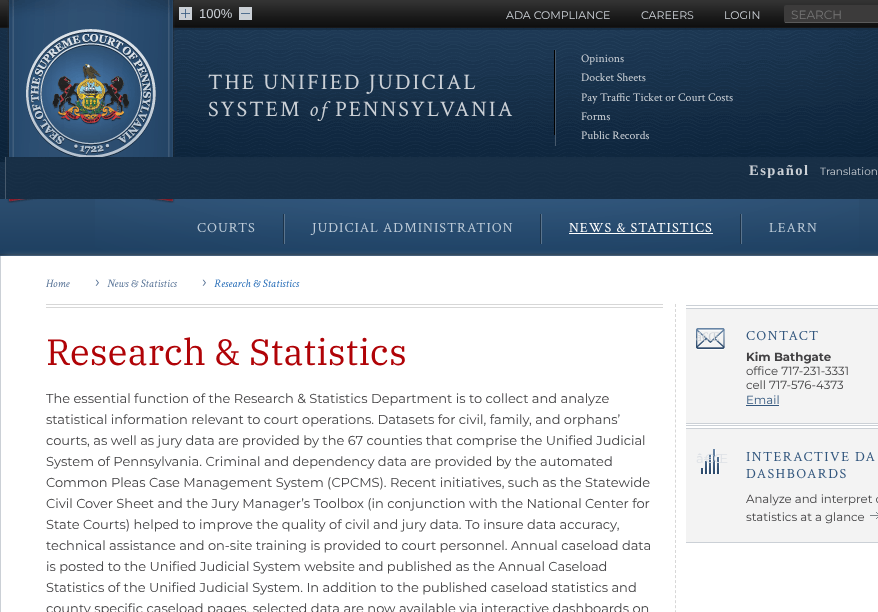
<?xml version="1.0" encoding="UTF-8"?>
<svg xmlns="http://www.w3.org/2000/svg" xmlns:xlink="http://www.w3.org/1999/xlink" width="878" height="612">
  <rect width="100%" height="100%" fill="#ffffff" />
  <image x="0" y="0" width="878" height="28" xlink:href="image2.png" />
  <image x="0" y="28" width="878" height="2" xlink:href="image4.png" />
  <image x="0" y="30" width="878" height="169" xlink:href="image5.png" />
  <image x="0" y="199" width="878" height="57" xlink:href="image7.png" />
  <image x="95" y="199" width="764" height="54" xlink:href="image8.png" />
  <image x="7" y="0" width="168" height="203" xlink:href="image1.png" />
  <rect x="179" y="7" width="13" height="13" fill="#cbd0d6" />
  <rect x="239" y="7" width="13" height="13" fill="#cbd0d6" />
  <image x="181" y="9" width="9" height="9" xlink:href="image3.png" />
  <rect x="241" y="13" width="9" height="1" fill="#516f90" />
  <rect x="784" y="5" width="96" height="18" rx="2" fill="#3c3b3b" />
  <rect x="785" y="22" width="93" height="1" fill="#5a5a5a" />
  <rect x="554" y="50" width="1" height="85" fill="#000000" />
  <rect x="555" y="50" width="1" height="96" fill="#47596c" />
  <image x="6" y="157" width="872" height="42" xlink:href="image6.png" />
  <rect x="5" y="157" width="1" height="42" fill="#47596c" />
  <rect x="283" y="214" width="1" height="30" fill="#1c334a" />
  <rect x="540" y="214" width="1" height="30" fill="#1c334a" />
  <rect x="284" y="214" width="1" height="30" fill="#5a748d" />
  <rect x="740" y="214" width="1" height="30" fill="#1c334a" />
  <rect x="541" y="214" width="1" height="30" fill="#5a748d" />
  <rect x="569" y="233" width="144" height="1" fill="#ffffff" />
  <rect x="741" y="214" width="1" height="30" fill="#5a748d" />
  <rect x="4" y="260" width="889" height="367" fill="#cbd0d6" filter="blur(5px)" />
  <rect x="1" y="256" width="877" height="356" fill="#ffffff" />
  <rect y="256" width="1" height="356" fill="#cbd0d6" />
  <path d="M 675.5 304 v 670" fill="none" stroke="#d7d7d7" stroke-dasharray="3 2.02" />
  <rect x="46" y="304" width="617" height="1" fill="#d7d7d7" />
  <rect x="46" y="307" width="617" height="1" fill="#d7d7d7" />
  <rect x="686" y="305" width="192" height="1" fill="#cbd0d6" />
  <rect x="686" y="308" width="192" height="1" fill="#cbd0d6" />
  <rect x="686" y="423" width="192" height="1" fill="#cbd0d6" />
  <rect x="686" y="309" width="192" height="114" fill="#f3f3f3" />
  <image x="696" y="328" width="29" height="22" xlink:href="image9.png" />
  <rect x="746" y="405" width="33" height="1" fill="#33577e" />
  <rect x="686" y="425" width="192" height="1" fill="#cbd0d6" />
  <rect x="686" y="428" width="192" height="1" fill="#cbd0d6" />
  <rect x="686" y="542" width="192" height="1" fill="#cbd0d6" />
  <rect x="686" y="429" width="192" height="113" fill="#f3f3f3" />
  <image x="701" y="449" width="19" height="25" xlink:href="image10.png" />
  <image x="870" y="512" width="8" height="7" xlink:href="image11.png" />
  <text x="199" y="18" style="font-family: Liberation Sans; font-size: 13px; fill: #cbd0d6">100%</text>
  <text x="506" y="19" style="font-family: Montserrat; font-size: 11px; fill: #cbd0d6">ADA COMPLIANCE</text>
  <text x="641" y="19" style="font-family: Montserrat; font-size: 11px; fill: #cbd0d6">CAREERS</text>
  <text x="724" y="19" style="font-family: Montserrat; font-size: 11px; fill: #cbd0d6">LOGIN</text>
  <text x="791" y="19" style="font-family: Montserrat; font-size: 12px; fill: #757575">SEARCH</text>
  <text x="208" y="89" style="font-family: Crimson Text; font-size: 22.1px; letter-spacing: 2px; fill: #cbd0d6">THE UNIFIED JUDICIAL</text>
  <text x="208" y="116" style="font-family: Crimson Text; font-size: 22.1px; letter-spacing: 2px; fill: #cbd0d6">SYSTEM</text>
  <text x="309" y="116" style="font-family: Crimson Text; font-size: 22.1px; font-style: italic; letter-spacing: 2px; fill: #cbd0d6">of</text>
  <text x="335" y="116" style="font-family: Crimson Text; font-size: 22.1px; letter-spacing: 2px; fill: #cbd0d6">PENNSYLVANIA</text>
  <text x="581" y="62" style="font-family: Crimson Text; font-size: 11.75px; fill: #cbd0d6">Opinions</text>
  <text x="581" y="81" style="font-family: Crimson Text; font-size: 11.75px; fill: #cbd0d6">Docket Sheets</text>
  <text x="581" y="101" style="font-family: Crimson Text; font-size: 11.75px; fill: #cbd0d6">Pay Traffic Ticket or Court Costs</text>
  <text x="581" y="120" style="font-family: Crimson Text; font-size: 11.75px; fill: #cbd0d6">Forms</text>
  <text x="581" y="139" style="font-family: Crimson Text; font-size: 11.75px; fill: #cbd0d6">Public Records</text>
  <text x="749" y="175" style="font-family: Liberation Serif; font-size: 14.5px; font-weight: bold; letter-spacing: 1.5px; fill: #cbd0d6">Español</text>
  <text x="820" y="175" style="font-family: Montserrat; font-size: 10.5px; fill: #cbd0d6">Translation</text>
  <text x="197" y="232" style="font-family: Crimson Text; font-size: 14px; letter-spacing: 1px; fill: #bccad7">COURTS</text>
  <text x="312" y="232" style="font-family: Crimson Text; font-size: 14px; letter-spacing: 1px; fill: #bccad7">JUDICIAL ADMINISTRATION</text>
  <text x="569" y="232" style="font-family: Crimson Text; font-size: 14px; letter-spacing: 1px; fill: #ffffff">NEWS &amp; STATISTICS</text>
  <text x="769" y="232" style="font-family: Crimson Text; font-size: 14px; letter-spacing: 1px; fill: #bccad7">LEARN</text>
  <text x="46" y="287" style="font-family: Crimson Text; font-size: 11.5px; font-style: italic; fill: #597497">Home</text>
  <text x="95" y="287" style="font-family: Montserrat; font-size: 16px; fill: #597497">›</text>
  <text x="107" y="287" style="font-family: Crimson Text; font-size: 11.5px; font-style: italic; fill: #597497">News &amp; Statistics</text>
  <text x="202" y="287" style="font-family: Montserrat; font-size: 16px; fill: #597497">›</text>
  <text x="214" y="287" style="font-family: Crimson Text; font-size: 11.5px; font-style: italic; fill: #256cb7">Research &amp; Statistics</text>
  <text x="46" y="365" style="font-family: IBM Plex Serif; font-size: 36.5px; letter-spacing: 0.1px; fill: #b00307">Research &amp; Statistics</text>
  <text x="46" y="403" style="font-family: Montserrat; font-size: 13px; fill: #414042">The essential function of the Research &amp; Statistics Department is to collect and analyze</text>
  <text x="46" y="424" style="font-family: Montserrat; font-size: 13px; fill: #414042">statistical information relevant to court operations. Datasets for civil, family, and orphans’</text>
  <text x="46" y="445" style="font-family: Montserrat; font-size: 13px; fill: #414042">courts, as well as jury data are provided by the 67 counties that comprise the Unified Judicial</text>
  <text x="46" y="466" style="font-family: Montserrat; font-size: 13px; fill: #414042">System of Pennsylvania. Criminal and dependency data are provided by the automated</text>
  <text x="46" y="487" style="font-family: Montserrat; font-size: 13px; fill: #414042">Common Pleas Case Management System (CPCMS). Recent initiatives, such as the Statewide</text>
  <text x="46" y="508" style="font-family: Montserrat; font-size: 13px; fill: #414042">Civil Cover Sheet and the Jury Manager’s Toolbox (in conjunction with the National Center for</text>
  <text x="46" y="529" style="font-family: Montserrat; font-size: 13px; fill: #414042">State Courts) helped to improve the quality of civil and jury data. To insure data accuracy,</text>
  <text x="46" y="550" style="font-family: Montserrat; font-size: 13px; fill: #414042">technical assistance and on-site training is provided to court personnel. Annual caseload data</text>
  <text x="46" y="571" style="font-family: Montserrat; font-size: 13px; fill: #414042">is posted to the Unified Judicial System website and published as the Annual Caseload</text>
  <text x="46" y="592" style="font-family: Montserrat; font-size: 13px; fill: #414042">Statistics of the Unified Judicial System. In addition to the published caseload statistics and</text>
  <text x="46" y="613" style="font-family: Montserrat; font-size: 13px; fill: #414042">county specific caseload pages, selected data are now available via interactive dashboards on</text>
  <text x="696" y="341" style="font-family: Liberation Serif; font-size: 13px; fill: #cbd0d6">â€Œ</text>
  <text x="746" y="340" style="font-family: Crimson Text; font-size: 14px; letter-spacing: 1.4px; fill: #33577e">CONTACT</text>
  <text x="746" y="361" style="font-family: Montserrat; font-size: 11.75px; font-weight: bold; fill: #414042">Kim Bathgate</text>
  <text x="746" y="375" style="font-family: Montserrat; font-size: 11.75px; fill: #414042">office 717-231-3331</text>
  <text x="746" y="389" style="font-family: Montserrat; font-size: 11.75px; fill: #414042">cell 717-576-4373</text>
  <text x="746" y="404" style="font-family: Montserrat; font-size: 11.75px; fill: #33577e">Email</text>
  <text x="696" y="463" style="font-family: Montserrat; font-size: 13px; fill: #dde1e6">â€Œ</text>
  <text x="746" y="461" style="font-family: Crimson Text; font-size: 14px; letter-spacing: 1.4px; fill: #33577e">INTERACTIVE DA</text>
  <text x="746" y="478" style="font-family: Crimson Text; font-size: 14px; letter-spacing: 1.4px; fill: #33577e">DASHBOARDS</text>
  <text x="746" y="503" style="font-family: Montserrat; font-size: 11.75px; fill: #414042">Analyze and interpret c</text>
  <text x="746" y="521" style="font-family: Montserrat; font-size: 11.75px; fill: #414042">statistics at a glance</text>
</svg>
